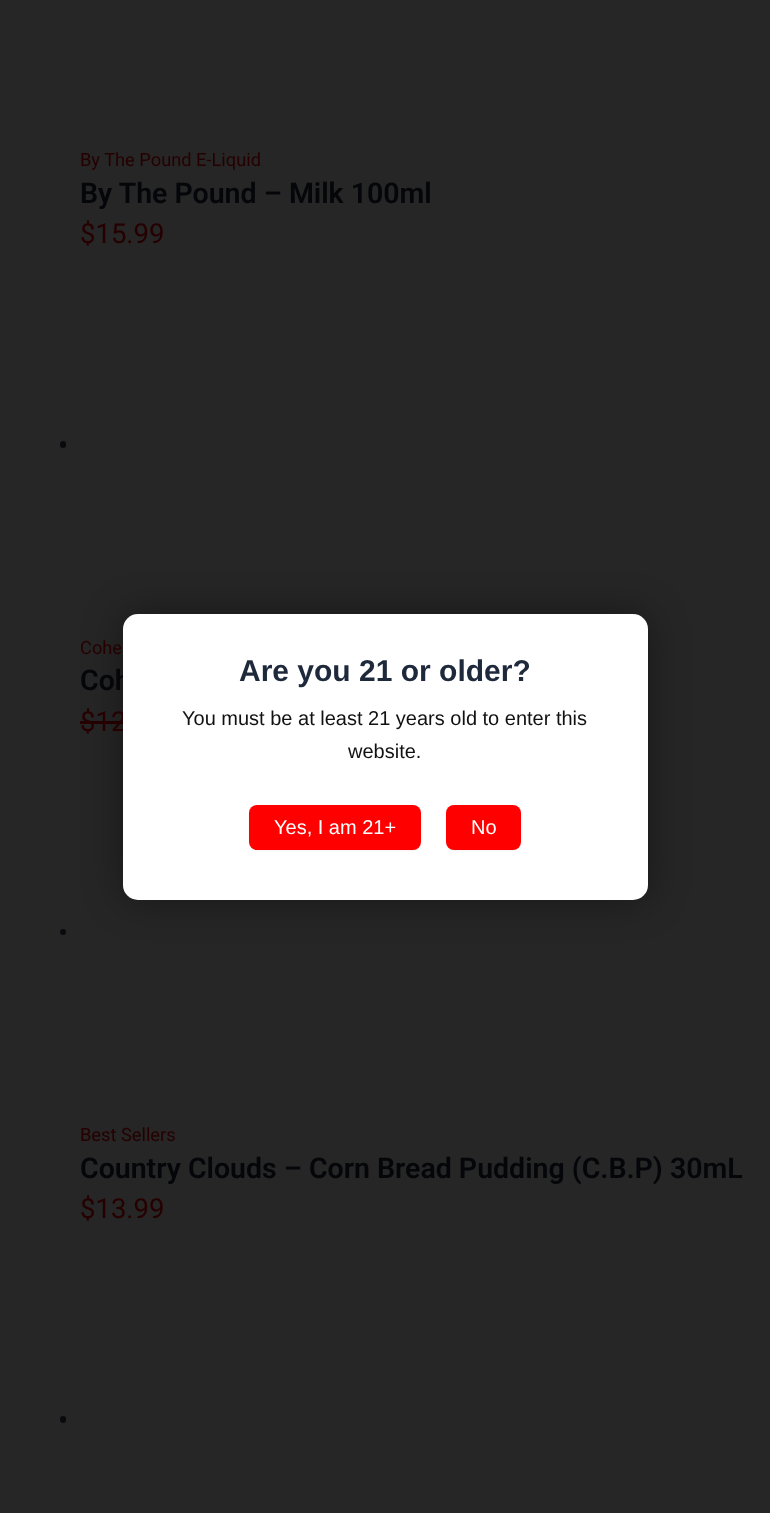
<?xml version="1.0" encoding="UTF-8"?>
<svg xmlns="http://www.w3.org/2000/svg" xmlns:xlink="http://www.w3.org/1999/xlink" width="770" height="1513">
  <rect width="100%" height="100%" fill="#262626" />
  <rect x="60" y="441" width="6" height="7" rx="3" fill="#080a0d" />
  <rect x="80" y="721" width="43" height="3" fill="#260000" />
  <circle cx="63" cy="932" r="3" fill="#080a0d" />
  <rect x="60" y="1416" width="6" height="7" rx="3" fill="#080a0d" />
  <rect x="123" y="614" width="525" height="286" rx="15" fill="#000000" fill-opacity="0.4" filter="blur(19px)" />
  <text x="80" y="166" style="font-family: Roboto; font-size: 18.25px; fill: #260000">By The Pound E-Liquid</text>
  <text x="80" y="203" style="font-family: Roboto; font-size: 28.5px; font-weight: 600; fill: #050609">By The Pound – Milk 100ml</text>
  <text x="80" y="243" style="font-family: Roboto; font-size: 27.5px; fill: #260000">$15.99</text>
  <text x="80" y="654" style="font-family: Roboto; font-size: 18.25px; fill: #260000">Cohe</text>
  <text x="80" y="690" style="font-family: Roboto; font-size: 28.5px; font-weight: 600; fill: #050609">Coh</text>
  <text x="80" y="731" style="font-family: Roboto; font-size: 27.5px; fill: #260000">$12</text>
  <text x="80" y="1141" style="font-family: Roboto; font-size: 18.25px; fill: #260000">Best Sellers</text>
  <text x="80" y="1178" style="font-family: Roboto; font-size: 28.5px; font-weight: 600; fill: #050609">Country Clouds – Corn Bread Pudding (C.B.P) 30mL</text>
  <text x="80" y="1218" style="font-family: Roboto; font-size: 27.5px; fill: #260000">$13.99</text>
  <rect x="123" y="614" width="525" height="286" rx="15" fill="#ffffff" />
  <text x="239" y="681" style="font-family: Liberation Sans; font-size: 30px; font-weight: bold; fill: #1e293b">Are you 21 or older?</text>
  <text x="182" y="725" style="font-family: Liberation Sans; font-size: 20px; fill: #111111">You must be at least 21 years old to enter this</text>
  <text x="348" y="758" style="font-family: Liberation Sans; font-size: 20px; fill: #111111">website.</text>
  <rect x="249" y="806" width="172" height="45" rx="8" fill="#000000" fill-opacity="0.05" filter="blur(1px)" />
  <rect x="249" y="805" width="172" height="45" rx="8" fill="#ff0000" />
  <text x="274" y="834" style="font-family: Liberation Sans; font-size: 20px; fill: #ffffff">Yes, I am 21+</text>
  <rect x="446" y="806" width="75" height="45" rx="8" fill="#000000" fill-opacity="0.05" filter="blur(1px)" />
  <rect x="446" y="805" width="75" height="45" rx="8" fill="#ff0000" />
  <text x="471" y="834" style="font-family: Liberation Sans; font-size: 20px; fill: #ffffff">No</text>
</svg>
